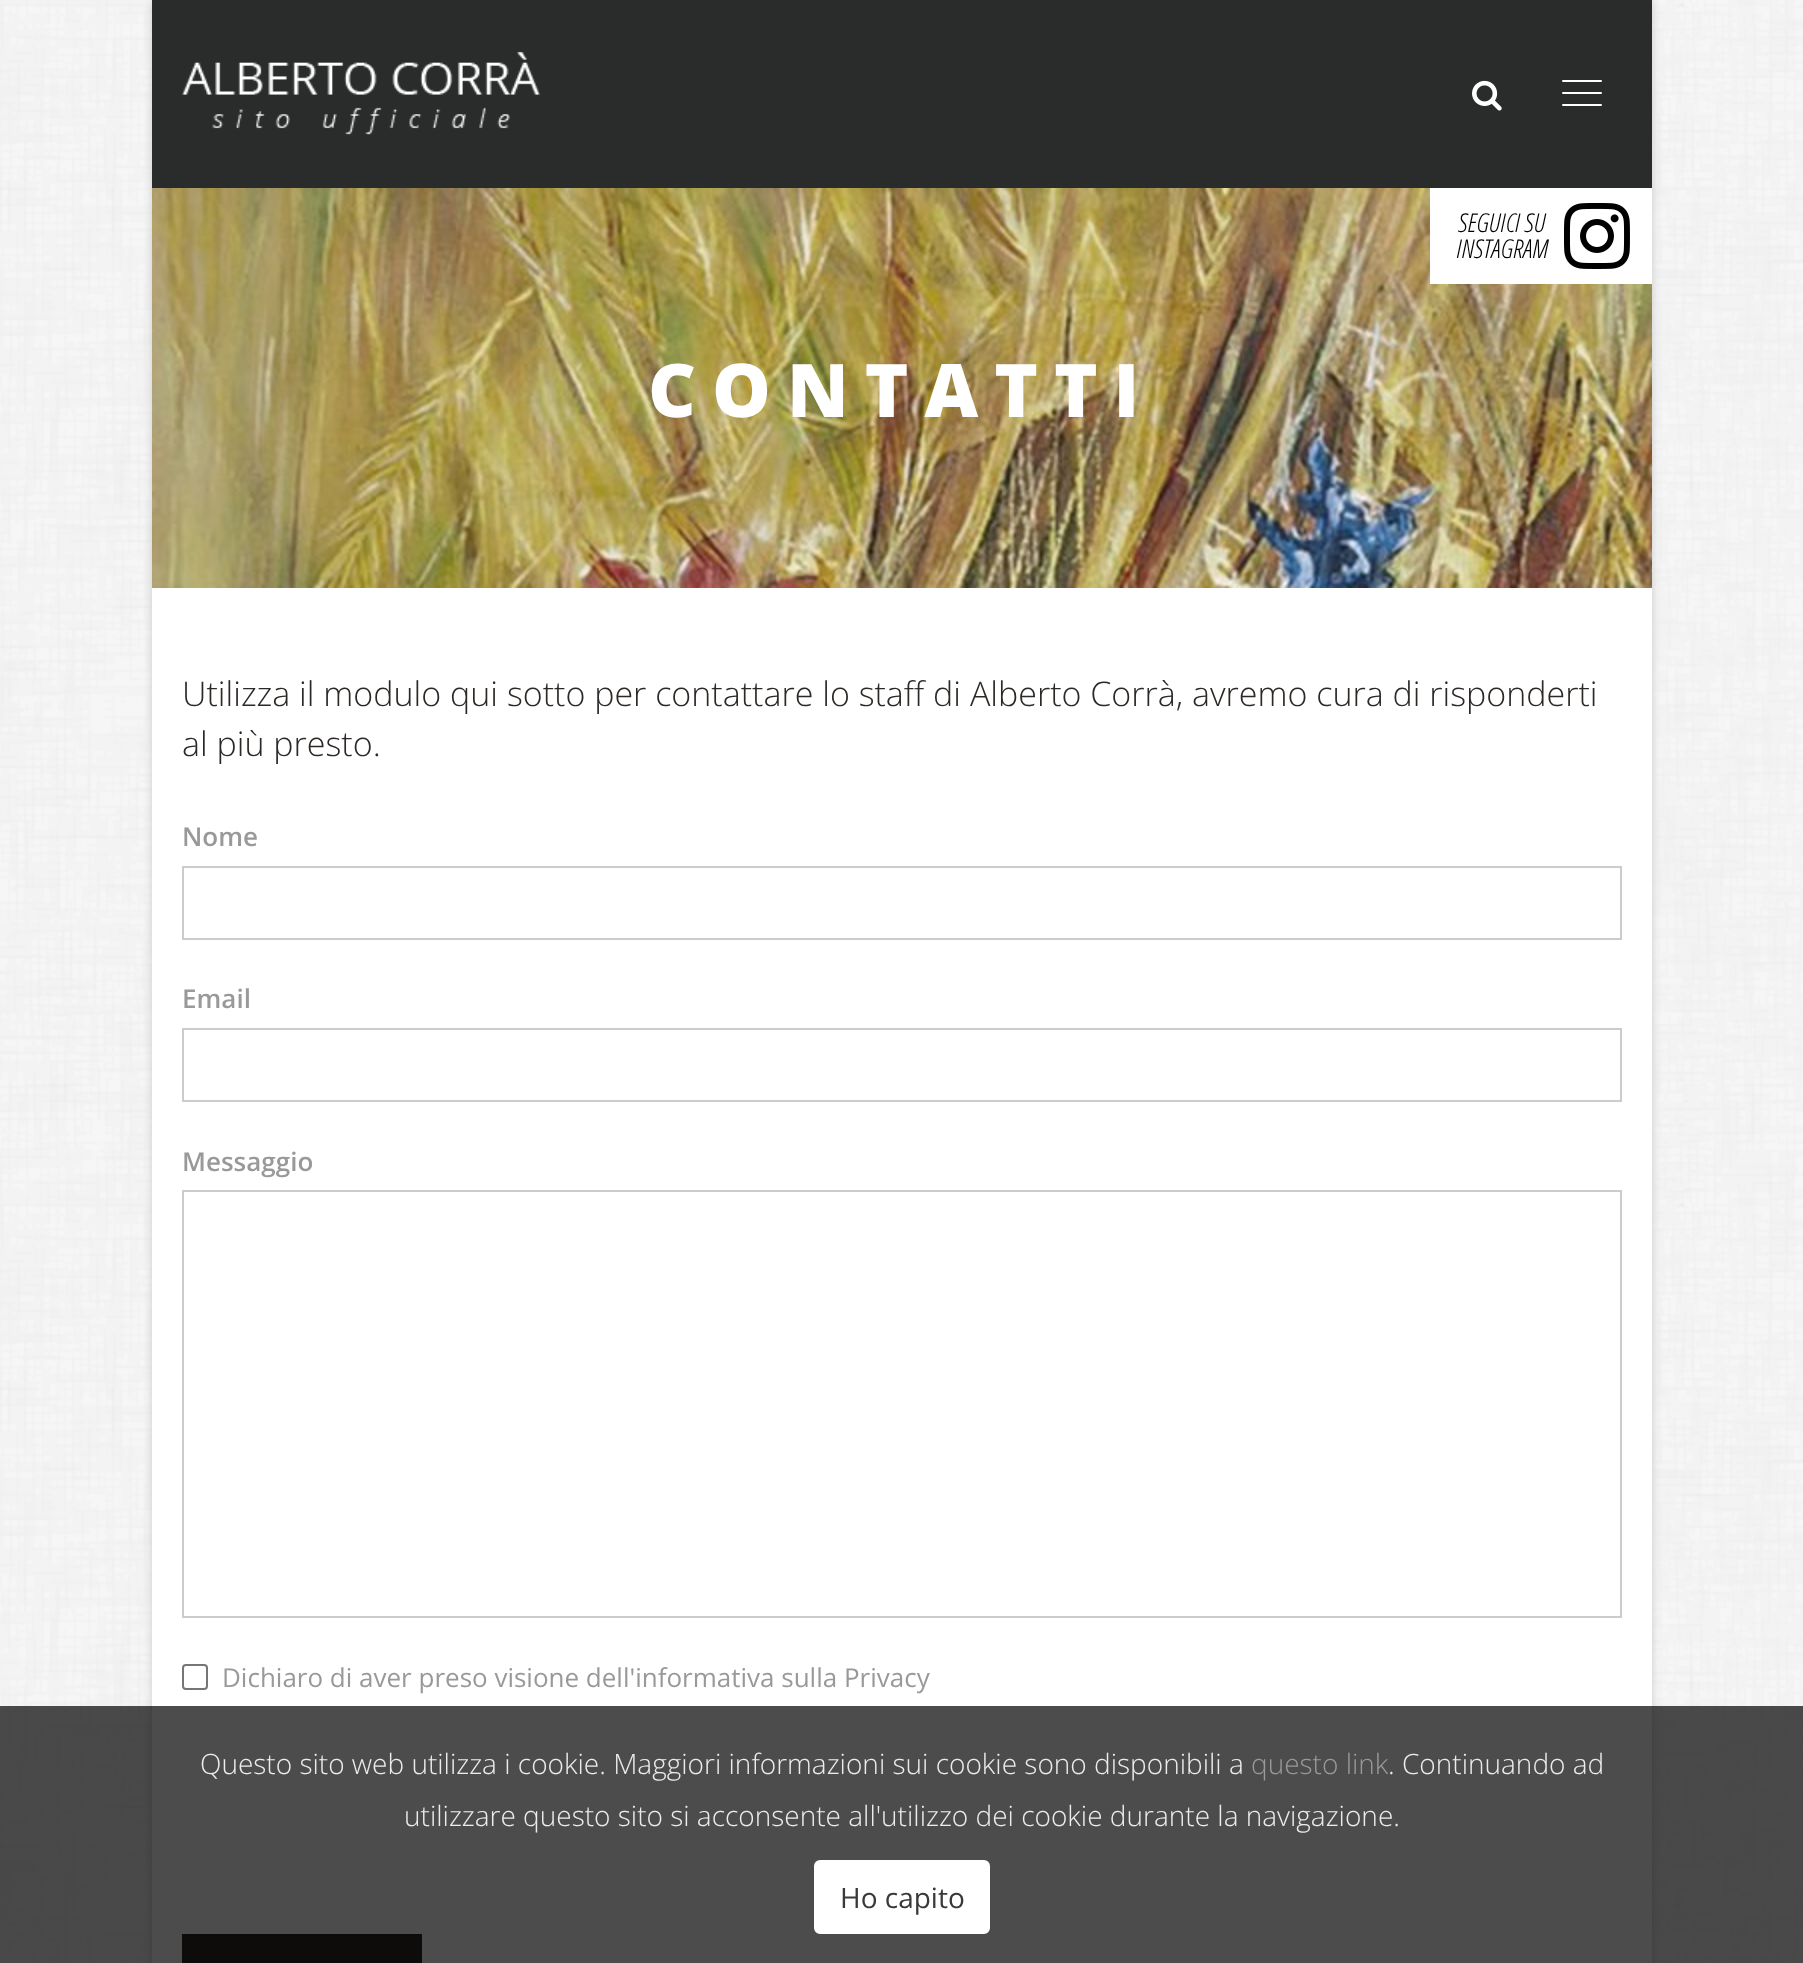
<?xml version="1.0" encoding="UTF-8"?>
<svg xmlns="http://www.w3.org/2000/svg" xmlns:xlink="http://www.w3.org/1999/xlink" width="1803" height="1963">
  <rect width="100%" height="100%" fill="#ffffff" />
  <image x="0" y="0" width="1803" height="1963" xlink:href="image1.png" />
  <rect x="152" width="1500" height="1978" fill="#cccccc" filter="blur(5px)" />
  <rect x="152" y="588" width="1500" height="1375" fill="#ffffff" />
  <rect x="152" width="1500" height="188" fill="#2a2b2b" />
  <image x="182" y="51" width="358" height="84" xlink:href="image2.png" />
  <image x="1472" y="80" width="30" height="31" xlink:href="image3.png" />
  <rect x="1562" y="80" width="40" height="2" rx="1" fill="#ffffff" />
  <rect x="1562" y="92" width="40" height="2" rx="1" fill="#ffffff" />
  <rect x="1562" y="104" width="40" height="2" rx="1" fill="#ffffff" />
  <image x="152" y="188" width="1500" height="400" xlink:href="image4.png" />
  <rect x="1430" y="188" width="222" height="96" fill="#ffffff" />
  <image x="1564" y="203" width="66" height="66" xlink:href="image5.png" />
  <rect x="183" y="867" width="1438" height="72" fill="none" stroke="#cccccc" stroke-width="2" />
  <rect x="183" y="1029" width="1438" height="72" fill="none" stroke="#cccccc" stroke-width="2" />
  <rect x="183" y="1191" width="1438" height="426" fill="none" stroke="#cccccc" stroke-width="2" />
  <rect x="183" y="1665" width="24" height="24" rx="3" fill="none" stroke="#767676" stroke-width="2" />
  <rect x="182" y="1934" width="240" height="29" fill="#2c2825" />
  <rect y="1706" width="1803" height="257" fill="#000000" fill-opacity="0.7" />
  <rect x="815" y="1861" width="174" height="72" rx="5" fill="#ffffff" stroke="#ffffff" stroke-width="2" />
  <text x="1458" y="232" style="font-family: Open Sans Condensed; font-size: 26px; font-weight: 300; font-style: italic; fill: #000000">SEGUICI SU</text>
  <text x="1456" y="258" style="font-family: Open Sans Condensed; font-size: 26px; font-weight: 300; font-style: italic; fill: #000000">INSTAGRAM</text>
  <text x="648" y="417" style="font-family: Open Sans; font-size: 74px; font-weight: 800; letter-spacing: 16px; fill: #ffffff">CONTATTI</text>
  <text x="182" y="706" style="font-family: Open Sans; font-size: 34px; font-weight: 300; fill: #2c2826">Utilizza il modulo qui sotto per contattare lo staff di Alberto Corrà, avremo cura di risponderti</text>
  <text x="182" y="756" style="font-family: Open Sans; font-size: 34px; font-weight: 300; fill: #2c2826">al più presto.</text>
  <text x="182" y="846" style="font-family: Open Sans; font-size: 26px; font-weight: 600; fill: #999999">Nome</text>
  <text x="182" y="1008" style="font-family: Open Sans; font-size: 26px; font-weight: 600; fill: #999999">Email</text>
  <text x="182" y="1171" style="font-family: Open Sans; font-size: 26px; font-weight: 600; fill: #999999">Messaggio</text>
  <text x="222" y="1687" style="font-family: Open Sans; font-size: 26px; fill: #999999">Dichiaro di aver preso visione dell'informativa sulla Privacy</text>
  <text x="200" y="1774" style="font-family: Open Sans; font-size: 28px; font-weight: 300; fill: #ececec">Questo sito web utilizza i cookie. Maggiori informazioni sui cookie sono disponibili a</text>
  <text x="1251" y="1774" style="font-family: Open Sans; font-size: 28px; font-weight: 300; fill: #999999">questo link</text>
  <text x="1388" y="1774" style="font-family: Open Sans; font-size: 28px; font-weight: 300; fill: #ececec">. Continuando ad</text>
  <text x="404" y="1826" style="font-family: Open Sans; font-size: 28px; font-weight: 300; fill: #ececec">utilizzare questo sito si acconsente all'utilizzo dei cookie durante la navigazione.</text>
  <text x="840" y="1908" style="font-family: Open Sans; font-size: 28px; fill: #393939">Ho capito</text>
</svg>
